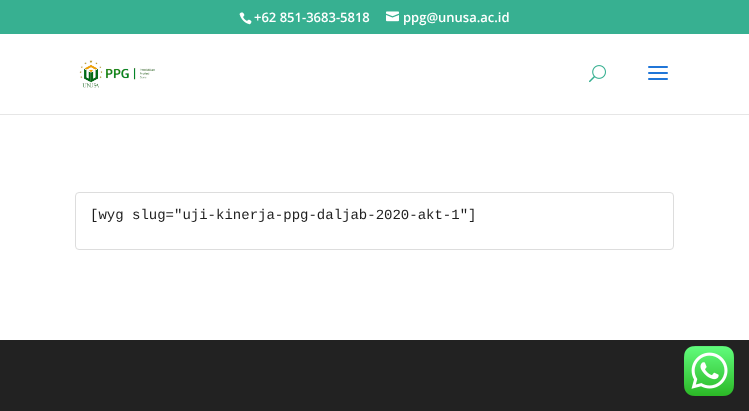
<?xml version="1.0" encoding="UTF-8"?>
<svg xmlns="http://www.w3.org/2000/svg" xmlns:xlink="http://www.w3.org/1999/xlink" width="749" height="411">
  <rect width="100%" height="100%" fill="#ffffff" />
  <rect width="749" height="34" fill="#37b091" />
  <image x="239" y="12" width="13" height="13" xlink:href="image1.png" />
  <image x="386" y="11" width="13" height="11" xlink:href="image2.png" />
  <rect y="114" width="749" height="1" fill="#e6e6e6" />
  <image x="79" y="60" width="76" height="28" xlink:href="image3.png" />
  <image x="589" y="65" width="17" height="18" xlink:href="image4.png" />
  <image x="648" y="66" width="20" height="14" xlink:href="image5.png" />
  <rect x="75.5" y="192.5" width="598" height="57" rx="3.5" fill="none" stroke="#dddddd" />
  <rect y="340" width="749" height="71" fill="#222222" />
  <image x="684" y="346" width="50" height="50" xlink:href="image6.png" />
  <text x="254" y="22" style="font-family: Open Sans; font-size: 13px; font-weight: 600; fill: #ffffff">+62 851-3683-5818</text>
  <text x="403" y="22" style="font-family: Open Sans; font-size: 13px; font-weight: 600; fill: #ffffff">ppg@unusa.ac.id</text>
  <text x="90" y="219" style="font-family: Liberation Mono; font-size: 14px; fill: #1e1e1e">[wyg slug="uji-kinerja-ppg-daljab-2020-akt-1"]</text>
</svg>
